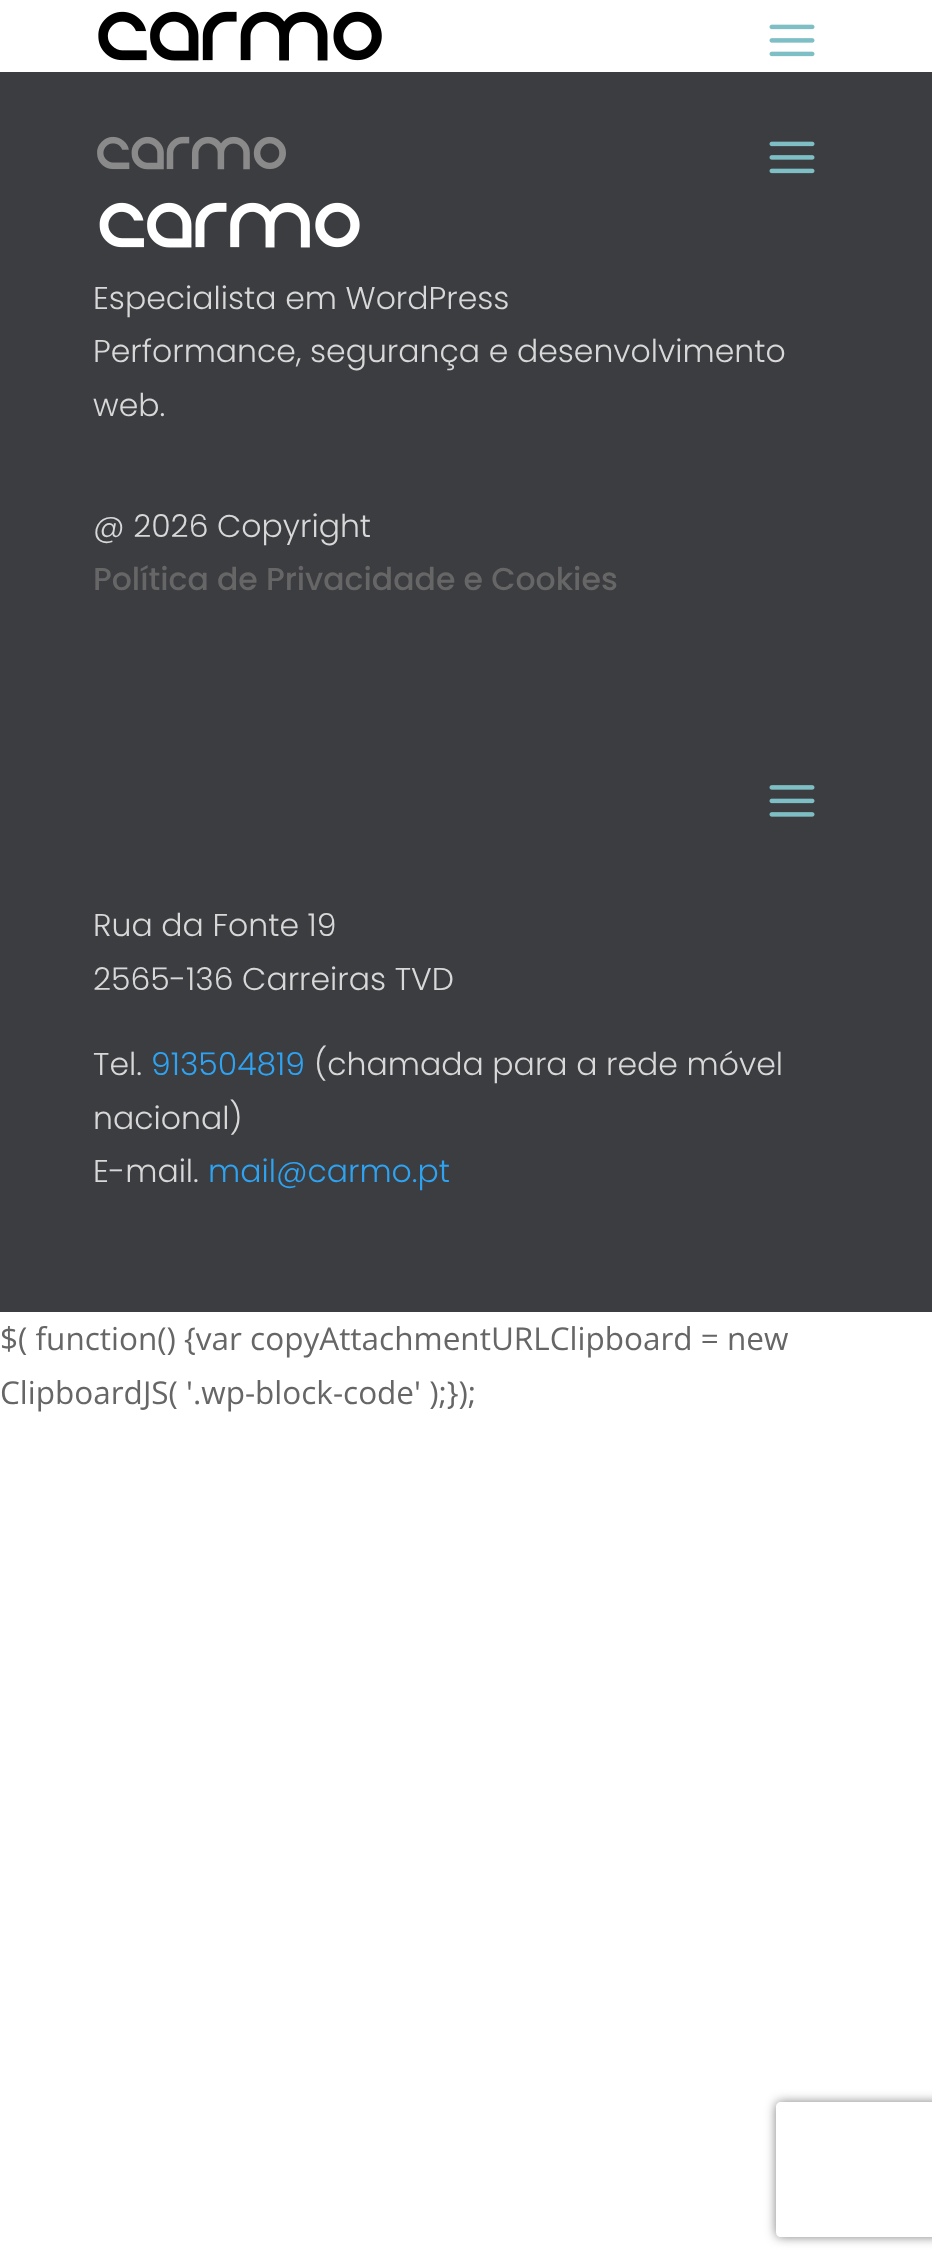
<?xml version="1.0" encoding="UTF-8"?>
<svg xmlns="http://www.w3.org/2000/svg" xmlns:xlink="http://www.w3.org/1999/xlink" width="932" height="2268">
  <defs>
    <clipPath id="clip1"><path d="M 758 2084 h 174 v 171 h -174 z m 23 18 h 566 c 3 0 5 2 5 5 v 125 c 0 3 -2 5 -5 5 h -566 c -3 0 -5 -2 -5 -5 v -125 c 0 -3 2 -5 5 -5 z" clip-rule="evenodd" /></clipPath>
  </defs>
  <rect width="100%" height="100%" fill="#ffffff" />
  <image x="98" y="11" width="284" height="50" xlink:href="image1.png" />
  <image x="769" y="24" width="46" height="33" xlink:href="image2.png" />
  <rect y="72" width="932" height="1240" fill="#3c3d41" />
  <image x="97" y="136" width="189" height="34" xlink:href="image3.png" />
  <image x="769" y="141" width="46" height="33" xlink:href="image4.png" />
  <image x="99" y="202" width="261" height="46" xlink:href="image5.png" />
  <image x="769" y="785" width="46" height="32" xlink:href="image6.png" />
  <g clip-path="url(#clip1)">
    <rect x="776" y="2102" width="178" height="135" rx="5" fill="#808080" filter="blur(5.5px)" />
  </g>
  <text x="93" y="309" style="font-family: Poppins; font-size: 31.5px; font-weight: 300; fill: #d8d8d8">Especialista em WordPress</text>
  <text x="93" y="362" style="font-family: Poppins; font-size: 31.5px; font-weight: 300; fill: #d8d8d8">Performance, segurança e desenvolvimento</text>
  <text x="93" y="416" style="font-family: Poppins; font-size: 31.5px; font-weight: 300; fill: #d8d8d8">web.</text>
  <text x="93" y="537" style="font-family: Poppins; font-size: 31.5px; font-weight: 300; fill: #d8d8d8">@ 2026 Copyright</text>
  <text x="93" y="590" style="font-family: Poppins; font-size: 31.5px; font-weight: 500; fill: #666666">Política de Privacidade e Cookies</text>
  <text x="93" y="936" style="font-family: Poppins; font-size: 31.5px; font-weight: 300; fill: #d8d8d8">Rua da Fonte 19</text>
  <text x="93" y="990" style="font-family: Poppins; font-size: 31.5px; font-weight: 300; fill: #d8d8d8">2565-136 Carreiras TVD</text>
  <text x="93" y="1075" style="font-family: Poppins; font-size: 31.5px; font-weight: 300; fill: #d8d8d8">Tel.</text>
  <text x="151" y="1075" style="font-family: Poppins; font-size: 31.5px; font-weight: 300; fill: #2ea3f2">913504819</text>
  <text x="314" y="1075" style="font-family: Poppins; font-size: 31.5px; font-weight: 300; fill: #d8d8d8">(chamada para a rede móvel</text>
  <text x="93" y="1129" style="font-family: Poppins; font-size: 31.5px; font-weight: 300; fill: #d8d8d8">nacional)</text>
  <text x="93" y="1182" style="font-family: Poppins; font-size: 31.5px; font-weight: 300; fill: #d8d8d8">E-mail.</text>
  <text x="208" y="1182" style="font-family: Poppins; font-size: 31.5px; font-weight: 300; fill: #2ea3f2">mail@carmo.pt</text>
  <text x="0" y="1350" style="font-family: Open Sans; font-size: 31.5px; fill: #666666">$( function() {var copyAttachmentURLClipboard = new</text>
  <text x="0" y="1404" style="font-family: Open Sans; font-size: 31.5px; fill: #666666">ClipboardJS( '.wp-block-code' );});</text>
</svg>
